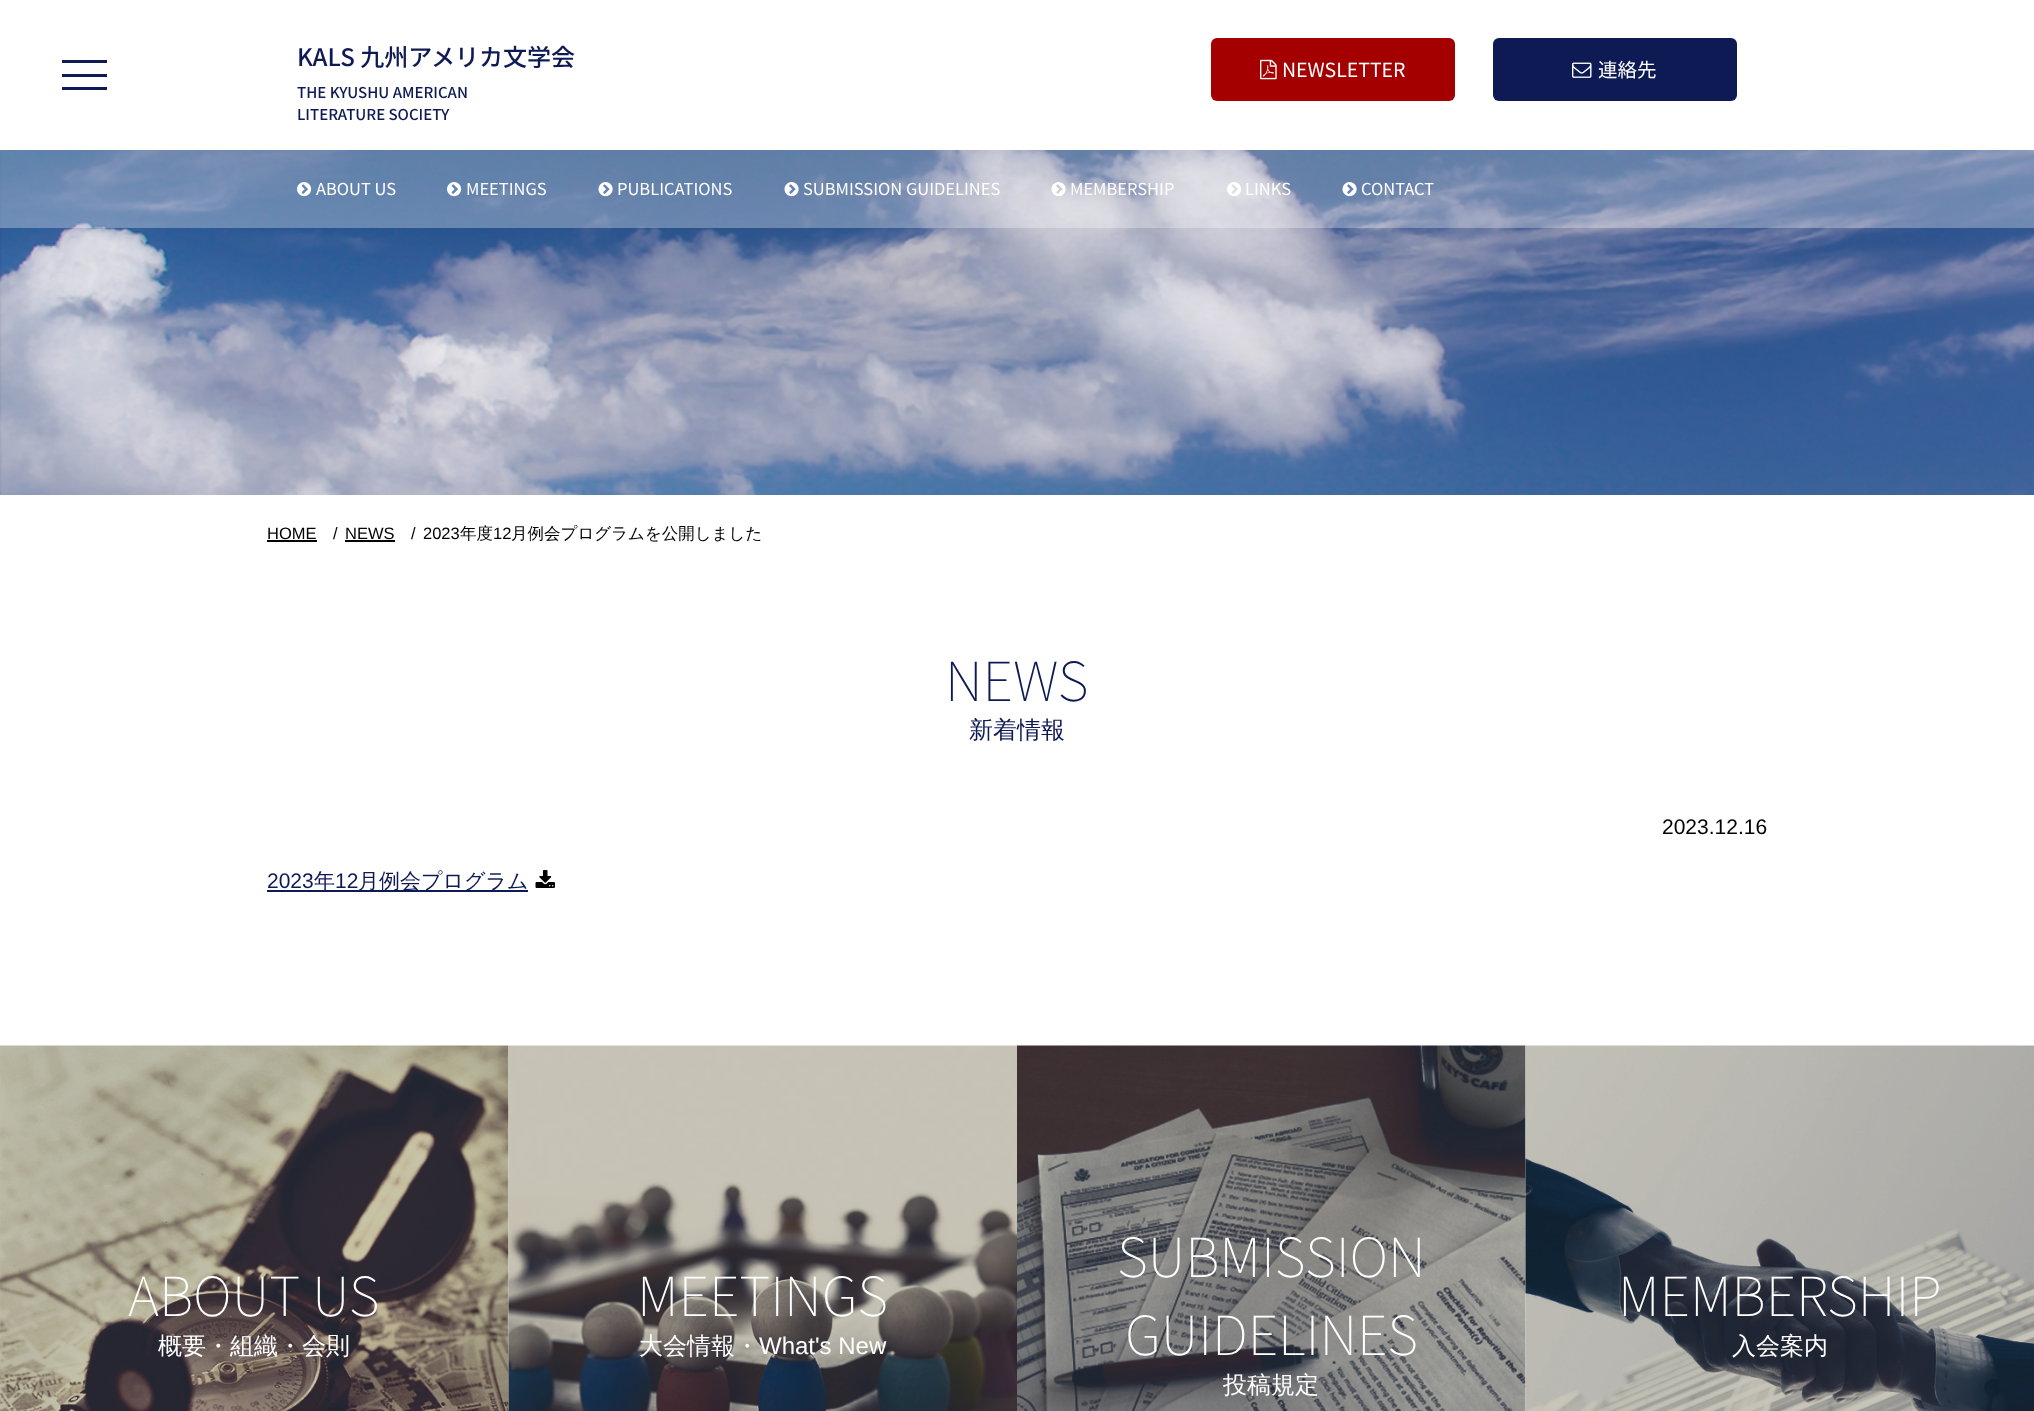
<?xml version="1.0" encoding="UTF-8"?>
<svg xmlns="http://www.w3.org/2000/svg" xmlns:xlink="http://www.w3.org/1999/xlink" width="2034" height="1411">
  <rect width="100%" height="100%" fill="#ffffff" />
  <rect x="62" y="60" width="45" height="3" fill="#0e1a54" />
  <rect x="62" y="74" width="45" height="3" fill="#0e1a54" />
  <rect x="62" y="87" width="45" height="3" fill="#0e1a54" />
  <rect x="1211" y="38" width="244" height="63" rx="6" fill="#a40000" />
  <image x="1260" y="59" width="17" height="21" xlink:href="image1.png" />
  <rect x="1493" y="38" width="244" height="63" rx="6" fill="#0e1a54" />
  <image x="1572" y="62" width="20" height="16" xlink:href="image2.png" />
  <image x="0" y="150" width="2034" height="345" xlink:href="image10.png" />
  <rect y="150" width="2034" height="78" fill="#ffffff" fill-opacity="0.3" />
  <image x="297" y="182" width="15" height="15" xlink:href="image3.png" />
  <image x="447" y="182" width="15" height="15" xlink:href="image4.png" />
  <image x="598" y="182" width="15" height="15" xlink:href="image5.png" />
  <image x="784" y="182" width="15" height="15" xlink:href="image6.png" />
  <image x="1051" y="182" width="15" height="15" xlink:href="image7.png" />
  <image x="1227" y="182" width="14" height="15" xlink:href="image8.png" />
  <image x="1342" y="182" width="15" height="15" xlink:href="image9.png" />
  <rect x="267" y="540" width="50" height="2" fill="#000000" />
  <rect x="345" y="540" width="50" height="2" fill="#000000" />
  <rect x="267" y="890" width="261" height="2" fill="#0e1a54" />
  <image x="535" y="870" width="20" height="18" xlink:href="image11.png" />
  <image x="0" y="1045" width="509" height="366" xlink:href="image12.png" />
  <image x="508" y="1045" width="509" height="366" xlink:href="image13.png" />
  <image x="1017" y="1045" width="509" height="366" xlink:href="image14.png" />
  <image x="1525" y="1045" width="509" height="366" xlink:href="image15.png" />
  <text x="297" y="66" style="font-family: Noto Sans JP; font-size: 24px; font-weight: 500; fill: #0e1a54">KALS 九州アメリカ文学会</text>
  <text x="1282" y="77" style="font-family: Noto Sans JP; font-size: 19.5px; fill: #ffffff">NEWSLETTER</text>
  <text x="1598" y="77" style="font-family: Noto Sans JP; font-size: 19.5px; fill: #ffffff">連絡先</text>
  <text x="297" y="98" style="font-family: Noto Sans JP; font-size: 15px; font-weight: 500; fill: #0e1a54">THE KYUSHU AMERICAN</text>
  <text x="297" y="120" style="font-family: Noto Sans JP; font-size: 15px; font-weight: 500; fill: #0e1a54">LITERATURE SOCIETY</text>
  <text x="316" y="195" style="font-family: Noto Sans JP; font-size: 16.5px; fill: #ffffff">ABOUT US</text>
  <text x="466" y="195" style="font-family: Noto Sans JP; font-size: 16.5px; fill: #ffffff">MEETINGS</text>
  <text x="617" y="195" style="font-family: Noto Sans JP; font-size: 16.5px; fill: #ffffff">PUBLICATIONS</text>
  <text x="803" y="195" style="font-family: Noto Sans JP; font-size: 16.5px; fill: #ffffff">SUBMISSION GUIDELINES</text>
  <text x="1070" y="195" style="font-family: Noto Sans JP; font-size: 16.5px; fill: #ffffff">MEMBERSHIP</text>
  <text x="1245" y="195" style="font-family: Noto Sans JP; font-size: 16.5px; fill: #ffffff">LINKS</text>
  <text x="1361" y="195" style="font-family: Noto Sans JP; font-size: 16.5px; fill: #ffffff">CONTACT</text>
  <text x="267" y="539" style="font-family: Liberation Sans; font-size: 16.5px; fill: #000000">HOME</text>
  <text x="333" y="539" style="font-family: Liberation Sans; font-size: 16.5px; fill: #000000">/</text>
  <text x="345" y="539" style="font-family: Liberation Sans; font-size: 16.5px; fill: #000000">NEWS</text>
  <text x="411" y="539" style="font-family: Liberation Sans; font-size: 16.5px; fill: #000000">/</text>
  <text x="423" y="539" style="font-family: Liberation Sans; font-size: 16.5px; fill: #000000">2023</text>
  <text x="460" y="539" style="font-family: WenQuanYi Zen Hei; font-size: 16.5px; font-weight: 500; fill: #000000">年度</text>
  <text x="493" y="539" style="font-family: Liberation Sans; font-size: 16.5px; fill: #000000">12</text>
  <text x="511" y="539" style="font-family: WenQuanYi Zen Hei; font-size: 16.5px; font-weight: 500; fill: #000000">月例会プログラムを公開しました</text>
  <text x="945" y="701" style="font-family: Noto Sans JP; font-size: 54px; font-weight: 100; fill: #0e1a54">NEWS</text>
  <text x="969" y="738" style="font-family: WenQuanYi Zen Hei; font-size: 24px; font-weight: 500; fill: #0e1a54">新着情報</text>
  <text x="1662" y="834" style="font-family: Liberation Sans; font-size: 21px; fill: #000000">2023.12.16</text>
  <text x="267" y="888" style="font-family: Liberation Sans; font-size: 21px; fill: #0e1a54">2023</text>
  <text x="314" y="888" style="font-family: WenQuanYi Zen Hei; font-size: 21px; font-weight: 500; fill: #0e1a54">年</text>
  <text x="335" y="888" style="font-family: Liberation Sans; font-size: 21px; fill: #0e1a54">12</text>
  <text x="358" y="888" style="font-family: WenQuanYi Zen Hei; font-size: 21px; font-weight: 500; fill: #0e1a54">月例会プログラム</text>
  <text x="128" y="1316" style="font-family: Noto Sans JP; font-size: 54px; font-weight: 100; fill: #ffffff">ABOUT US</text>
  <text x="158" y="1354" style="font-family: WenQuanYi Zen Hei; font-size: 24px; font-weight: 500; fill: #ffffff">概要・組織・会則</text>
  <text x="637" y="1316" style="font-family: Noto Sans JP; font-size: 54px; font-weight: 100; fill: #ffffff">MEETINGS</text>
  <text x="639" y="1354" style="font-family: WenQuanYi Zen Hei; font-size: 24px; font-weight: 500; fill: #ffffff">大会情報・</text>
  <text x="759" y="1354" style="font-family: Liberation Sans; font-size: 24px; fill: #ffffff">What's New</text>
  <text x="1117" y="1277" style="font-family: Noto Sans JP; font-size: 54px; font-weight: 100; fill: #ffffff">SUBMISSION</text>
  <text x="1125" y="1355" style="font-family: Noto Sans JP; font-size: 54px; font-weight: 100; fill: #ffffff">GUIDELINES</text>
  <text x="1223" y="1393" style="font-family: WenQuanYi Zen Hei; font-size: 24px; font-weight: 500; fill: #ffffff">投稿規定</text>
  <text x="1618" y="1316" style="font-family: Noto Sans JP; font-size: 54px; font-weight: 100; fill: #ffffff">MEMBERSHIP</text>
  <text x="1732" y="1354" style="font-family: WenQuanYi Zen Hei; font-size: 24px; font-weight: 500; fill: #ffffff">入会案内</text>
</svg>
